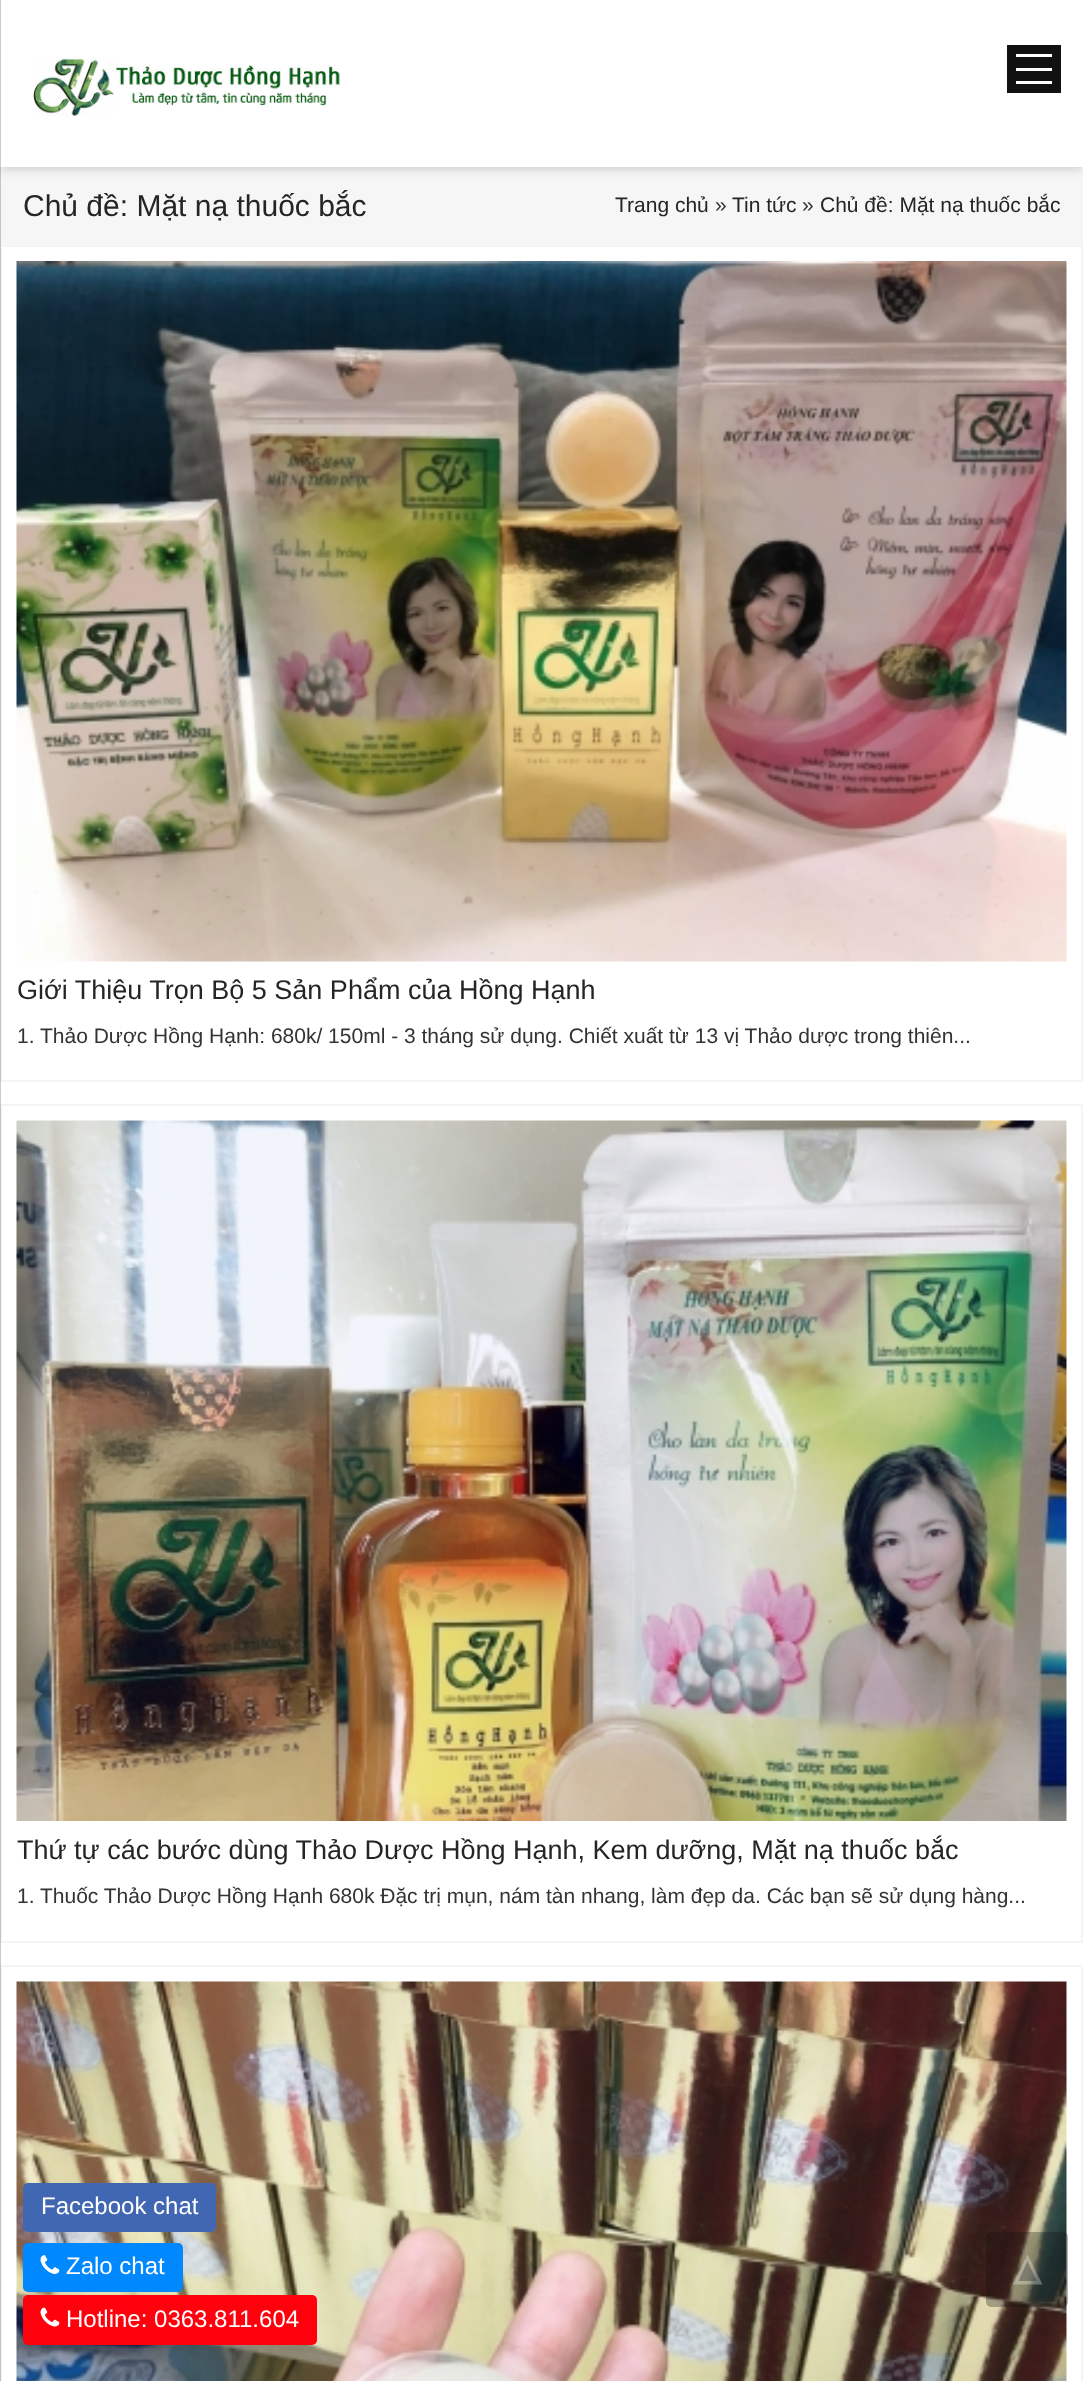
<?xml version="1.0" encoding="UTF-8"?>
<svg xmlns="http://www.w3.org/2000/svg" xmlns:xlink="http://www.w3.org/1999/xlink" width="1083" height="2381">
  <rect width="100%" height="100%" fill="#ffffff" />
  <rect y="167" width="1083" height="78" fill="#f6f6f6" />
  <rect y="2" width="1083" height="166" fill="#000000" fill-opacity="0.2" filter="blur(6px)" />
  <rect width="1083" height="167" fill="#ffffff" />
  <rect x="1" y="246" width="1081" height="835" fill="none" stroke="#f4f4f4" stroke-width="2" />
  <rect x="1" y="1105" width="1081" height="837" fill="none" stroke="#f4f4f4" stroke-width="2" />
  <rect x="1" y="1966" width="1081" height="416" fill="none" stroke="#f4f4f4" stroke-width="2" />
  <rect width="1" height="2381" fill="#000000" fill-opacity="0.2" />
  <image x="33" y="58" width="308" height="59" xlink:href="image1.png" />
  <rect x="1007" y="45" width="54" height="48" fill="#111111" />
  <rect x="1016" y="54" width="36" height="3" fill="#ffffff" />
  <rect x="1016" y="68" width="36" height="3" fill="#ffffff" />
  <rect x="1016" y="81" width="36" height="3" fill="#ffffff" />
  <image x="16" y="261" width="1051" height="701" xlink:href="image2.png" />
  <image x="16" y="1120" width="1051" height="701" xlink:href="image3.png" />
  <image x="16" y="1981" width="1051" height="400" xlink:href="image4.png" />
  <rect x="986" y="2232" width="82" height="75" rx="5" fill="#111111" fill-opacity="0.3" />
  <path d="M 1042.5 2284.5 h -30 l 15 -30 z" fill="#ffffff" fill-opacity="0.3" />
  <path d="M 1036.5 2281 h -18 l 9 -20 z" fill="#111111" fill-opacity="0.3" />
  <rect x="23" y="2183" width="193" height="49" rx="5" fill="#4267b2" />
  <rect x="23" y="2243" width="160" height="49" rx="5" fill="#0088ff" />
  <image x="40" y="2255" width="20" height="19" xlink:href="image5.png" />
  <rect x="23" y="2295" width="294" height="50" rx="5" fill="#ff000c" />
  <image x="40" y="2307" width="20" height="20" xlink:href="image6.png" />
  <text x="23" y="216" style="font-family: Liberation Sans; font-size: 30px; fill: #252525">Chủ đề: Mặt nạ thuốc bắc</text>
  <text x="615" y="212" style="font-family: Liberation Sans; font-size: 21px; fill: #252525">Trang chủ</text>
  <text x="715" y="212" style="font-family: Liberation Sans; font-size: 21px; fill: #333333">»</text>
  <text x="732" y="212" style="font-family: Liberation Sans; font-size: 21px; fill: #252525">Tin tức</text>
  <text x="802" y="212" style="font-family: Liberation Sans; font-size: 21px; fill: #333333">»</text>
  <text x="820" y="212" style="font-family: Liberation Sans; font-size: 21px; fill: #252525">Chủ đề: Mặt nạ thuốc bắc</text>
  <text x="17" y="999" style="font-family: Liberation Sans; font-size: 27px; fill: #252525">Giới Thiệu Trọn Bộ 5 Sản Phẩm của Hồng Hạnh</text>
  <text x="17" y="1043" style="font-family: Liberation Sans; font-size: 21px; fill: #333333">1. Thảo Dược Hồng Hạnh: 680k/ 150ml - 3 tháng sử dụng. Chiết xuất từ 13 vị Thảo dược trong thiên...</text>
  <text x="17" y="1859" style="font-family: Liberation Sans; font-size: 27px; fill: #252525">Thứ tự các bước dùng Thảo Dược Hồng Hạnh, Kem dưỡng, Mặt nạ thuốc bắc</text>
  <text x="17" y="1903" style="font-family: Liberation Sans; font-size: 21px; fill: #333333">1. Thuốc Thảo Dược Hồng Hạnh 680k Đặc trị mụn, nám tàn nhang, làm đẹp da. Các bạn sẽ sử dụng hàng...</text>
  <text x="41" y="2214" style="font-family: Liberation Sans; font-size: 24px; fill: #ffffff">Facebook chat</text>
  <text x="66" y="2274" style="font-family: Liberation Sans; font-size: 24px; fill: #ffffff">Zalo chat</text>
  <text x="66" y="2327" style="font-family: Liberation Sans; font-size: 24px; fill: #ffffff">Hotline: 0363.811.604</text>
</svg>
